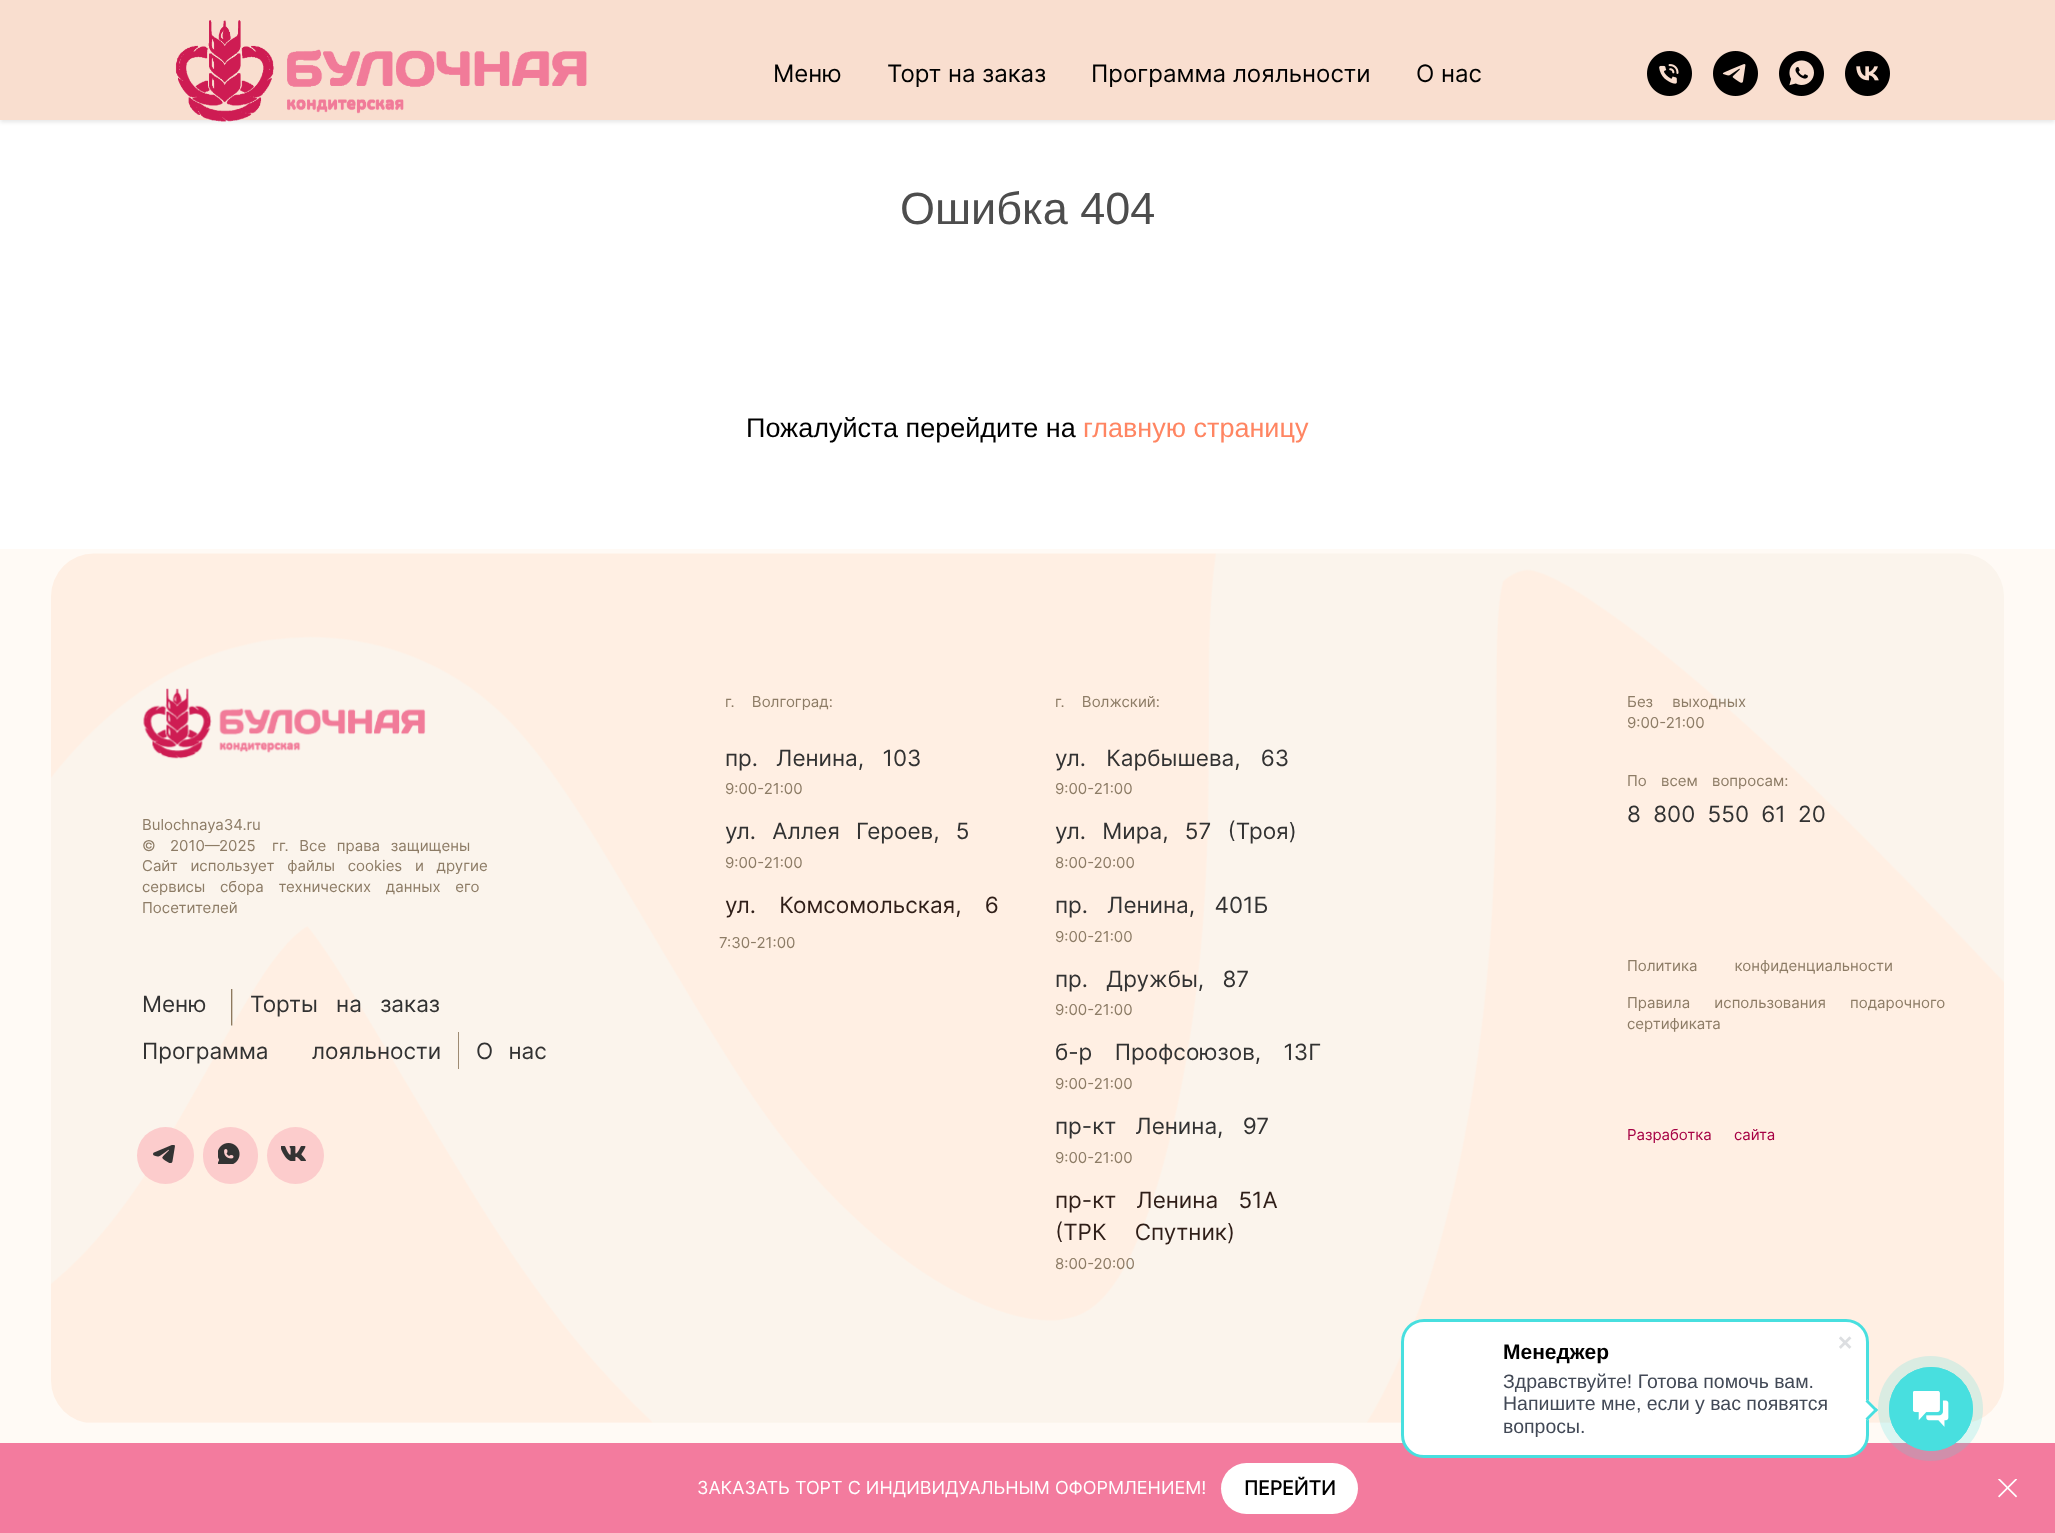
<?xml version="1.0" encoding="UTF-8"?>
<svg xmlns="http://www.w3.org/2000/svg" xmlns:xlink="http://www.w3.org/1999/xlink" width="2055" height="1533">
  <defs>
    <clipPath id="clip1"><rect x="231" y="989" width="2" height="43" /></clipPath>
  </defs>
  <rect width="100%" height="100%" fill="#ffffff" />
  <rect y="2" width="2055" height="120" fill="#000000" fill-opacity="0.1" filter="blur(2px)" />
  <rect width="2055" height="120" fill="#f9decf" />
  <image x="175" y="20" width="412" height="102" xlink:href="image1.png" />
  <image x="1647" y="51" width="45" height="45" xlink:href="image2.png" />
  <image x="1713" y="51" width="45" height="45" xlink:href="image3.png" />
  <image x="1779" y="51" width="45" height="45" xlink:href="image4.png" />
  <image x="1845" y="51" width="45" height="45" xlink:href="image5.png" />
  <rect y="1443" width="2055" height="90" fill="#f37b9e" />
  <rect x="1221" y="1463" width="137" height="51" rx="25.5" fill="#ffffff" />
  <image x="1998" y="1479" width="20" height="19" xlink:href="image6.png" />
  <rect y="549" width="2055" height="894" fill="#fffaf5" />
  <image x="51" y="553" width="1953" height="870" xlink:href="image7.png" />
  <image x="143" y="688" width="283" height="71" xlink:href="image8.png" />
  <g clip-path="url(#clip1)">
    <path d="M 231.5 988.5 v 37" fill="none" stroke="#8e795e" stroke-width="1.7" />
  </g>
  <rect x="458" y="1032" width="1" height="37" fill="#9e8b73" />
  <circle cx="165.5" cy="1155.5" r="28.5" fill="#fccccc" />
  <image x="153" y="1145" width="22" height="18" xlink:href="image9.png" />
  <rect x="203" y="1127" width="55" height="57" rx="27.5" fill="#fccccc" />
  <image x="218" y="1143" width="22" height="21" xlink:href="image10.png" />
  <circle cx="295.5" cy="1155.5" r="28.5" fill="#fccccc" />
  <image x="281" y="1146" width="25" height="15" xlink:href="image11.png" />
  <rect x="1402.5" y="1320.5" width="465" height="136" rx="21.5" fill="#ffffff" stroke="#48dfdf" stroke-width="3" />
  <image x="1839" y="1336" width="13" height="13" xlink:href="image12.png" />
  <path d="M 1857 1410 l 10.5 -10.5 l 10.5 10.5 l -10.5 10.5 z" fill="#ffffff" />
  <path d="M 1865.5 1401.5 l 2 -2 l 10.5 10.5 l -2 2 z" fill="#48dfdf" />
  <path d="M 1865.5 1418.5 l 10.5 -10.5 l 2 2 l -10.5 10.5 z" fill="#48dfdf" />
  <circle cx="1930.5" cy="1408.5" r="52.5" fill="#48dfdf" fill-opacity="0.2" />
  <circle cx="1931" cy="1409" r="41.5" fill="none" stroke="#48dfdf" />
  <circle cx="1931" cy="1409" r="42" fill="#48dfdf" />
  <image x="1913" y="1391" width="36" height="36" xlink:href="image13.png" />
  <text x="773" y="82" style="font-family: Inter; font-size: 24px; fill: #000000">Меню</text>
  <text x="887" y="82" style="font-family: Inter; font-size: 24px; fill: #000000">Торт на заказ</text>
  <text x="1091" y="82" style="font-family: Inter; font-size: 24px; fill: #000000">Программа лояльности</text>
  <text x="1416" y="82" style="font-family: Inter; font-size: 24px; fill: #000000">О нас</text>
  <text x="697" y="1494" style="font-family: Inter; font-size: 18px; fill: #ffffff">ЗАКАЗАТЬ ТОРТ С ИНДИВИДУАЛЬНЫМ ОФОРМЛЕНИЕМ!</text>
  <text x="1244" y="1495" style="font-family: Inter; font-size: 19.5px; font-weight: bold; fill: #000000">ПЕРЕЙТИ</text>
  <text x="900" y="224" style="font-family: Liberation Sans; font-size: 45px; fill: #4d4d4d">Ошибка 404</text>
  <text x="746" y="437" style="font-family: Liberation Sans; font-size: 27px; fill: #000000">Пожалуйста перейдите на</text>
  <text x="1083" y="437" style="font-family: Liberation Sans; font-size: 27px; fill: #ff8562">главную страницу</text>
  <text x="725" y="707" word-spacing="13" style="font-family: Inter; font-size: 15px; fill: #8d7c66">г. Волгоград:</text>
  <text x="1055" y="707" word-spacing="13" style="font-family: Inter; font-size: 15px; fill: #8d7c66">г. Волжский:</text>
  <text x="1627" y="707" word-spacing="15" style="font-family: Inter; font-size: 15px; fill: #8d7c66">Без выходных</text>
  <text x="1627" y="728" style="font-family: Inter; font-size: 15px; fill: #8d7c66">9:00-21:00</text>
  <text x="725" y="766" word-spacing="12" style="font-family: Inter; font-size: 22.5px; fill: #323232">пр. Ленина, 103</text>
  <text x="1055" y="766" word-spacing="14" style="font-family: Inter; font-size: 22.5px; fill: #323232">ул. Карбышева, 63</text>
  <text x="725" y="794" style="font-family: Inter; font-size: 15px; fill: #8d7c66">9:00-21:00</text>
  <text x="1055" y="794" style="font-family: Inter; font-size: 15px; fill: #8d7c66">9:00-21:00</text>
  <text x="1627" y="786" word-spacing="10" style="font-family: Inter; font-size: 15px; fill: #8d7c66">По всем вопросам:</text>
  <text x="1627" y="822" word-spacing="6" style="font-family: Inter; font-size: 22.5px; fill: #323232">8 800 550 61 20</text>
  <text x="142" y="830" style="font-family: Inter; font-size: 15px; fill: #8d7c66">Bulochnaya34.ru</text>
  <text x="142" y="851" style="font-family: Inter; font-size: 15px; fill: #8d7c66">©</text>
  <text x="170" y="851" style="font-family: Inter; font-size: 15px; fill: #8d7c66">2010—</text>
  <text x="219" y="851" style="font-family: Inter; font-size: 15px; fill: #8d7c66">2025</text>
  <text x="272" y="851" word-spacing="6.5" style="font-family: Inter; font-size: 15px; fill: #8d7c66">гг. Все права защищены</text>
  <text x="142" y="871" word-spacing="8.5" style="font-family: Inter; font-size: 15px; fill: #8d7c66">Сайт использует файлы cookies и другие</text>
  <text x="142" y="892" word-spacing="10.5" style="font-family: Inter; font-size: 15px; fill: #8d7c66">сервисы сбора технических данных его</text>
  <text x="142" y="913" style="font-family: Inter; font-size: 15px; fill: #8d7c66">Посетителей</text>
  <text x="725" y="839" word-spacing="10" style="font-family: Inter; font-size: 22.5px; fill: #323232">ул. Аллея Героев, 5</text>
  <text x="1055" y="839" word-spacing="10" style="font-family: Inter; font-size: 22.5px; fill: #323232">ул. Мира, 57 (Троя)</text>
  <text x="725" y="868" style="font-family: Inter; font-size: 15px; fill: #8d7c66">9:00-21:00</text>
  <text x="1055" y="868" style="font-family: Inter; font-size: 15px; fill: #8d7c66">8:00-20:00</text>
  <text x="725" y="913" word-spacing="17" style="font-family: Inter; font-size: 22.5px; fill: #2f1e18">ул. Комсомольская, 6</text>
  <text x="1055" y="913" word-spacing="13" style="font-family: Inter; font-size: 22.5px; fill: #323232">пр. Ленина, 401Б</text>
  <text x="719" y="948" style="font-family: Inter; font-size: 15px; fill: #8d7c66">7:30-21:00</text>
  <text x="1055" y="942" style="font-family: Inter; font-size: 15px; fill: #8d7c66">9:00-21:00</text>
  <text x="1627" y="971" word-spacing="33" style="font-family: Inter; font-size: 15px; fill: #8d7c66">Политика конфиденциальности</text>
  <text x="1055" y="987" word-spacing="12" style="font-family: Inter; font-size: 22.5px; fill: #323232">пр. Дружбы, 87</text>
  <text x="142" y="1012" style="font-family: Inter; font-size: 22.5px; fill: #323232">Меню</text>
  <text x="250" y="1012" word-spacing="12" style="font-family: Inter; font-size: 22.5px; fill: #323232">Торты на заказ</text>
  <text x="1055" y="1015" style="font-family: Inter; font-size: 15px; fill: #8d7c66">9:00-21:00</text>
  <text x="1627" y="1008" word-spacing="20" style="font-family: Inter; font-size: 15px; fill: #8d7c66">Правила использования подарочного</text>
  <text x="1627" y="1029" style="font-family: Inter; font-size: 15px; fill: #8d7c66">сертификата</text>
  <text x="142" y="1059" word-spacing="37" style="font-family: Inter; font-size: 22.5px; fill: #323232">Программа лояльности</text>
  <text x="476" y="1059" word-spacing="9" style="font-family: Inter; font-size: 22.5px; fill: #323232">О нас</text>
  <text x="1055" y="1060" word-spacing="16" style="font-family: Inter; font-size: 22.5px; fill: #323232">б-р Профсоюзов, 13Г</text>
  <text x="1055" y="1089" style="font-family: Inter; font-size: 15px; fill: #8d7c66">9:00-21:00</text>
  <text x="1055" y="1134" word-spacing="13" style="font-family: Inter; font-size: 22.5px; fill: #323232">пр-кт Ленина, 97</text>
  <text x="1627" y="1140" word-spacing="18" style="font-family: Inter; font-size: 15px; fill: #a60044">Разработка сайта</text>
  <text x="1055" y="1163" style="font-family: Inter; font-size: 15px; fill: #8d7c66">9:00-21:00</text>
  <text x="1055" y="1208" word-spacing="14" style="font-family: Inter; font-size: 22.5px; fill: #2f1e18">пр-кт Ленина 51А</text>
  <text x="1055" y="1240" word-spacing="22" style="font-family: Inter; font-size: 22.5px; fill: #2f1e18">(ТРК Спутник)</text>
  <text x="1055" y="1269" style="font-family: Inter; font-size: 15px; fill: #8d7c66">8:00-20:00</text>
  <text x="1503" y="1359" style="font-family: Liberation Sans; font-size: 21px; font-weight: bold; fill: #000000">Менеджер</text>
  <text x="1503" y="1388" style="font-family: Liberation Sans; font-size: 19.5px; fill: #424956">Здравствуйте! Готова помочь вам.</text>
  <text x="1503" y="1410" style="font-family: Liberation Sans; font-size: 19.5px; fill: #424956">Напишите мне, если у вас появятся</text>
  <text x="1503" y="1433" style="font-family: Liberation Sans; font-size: 19.5px; fill: #424956">вопросы.</text>
</svg>
